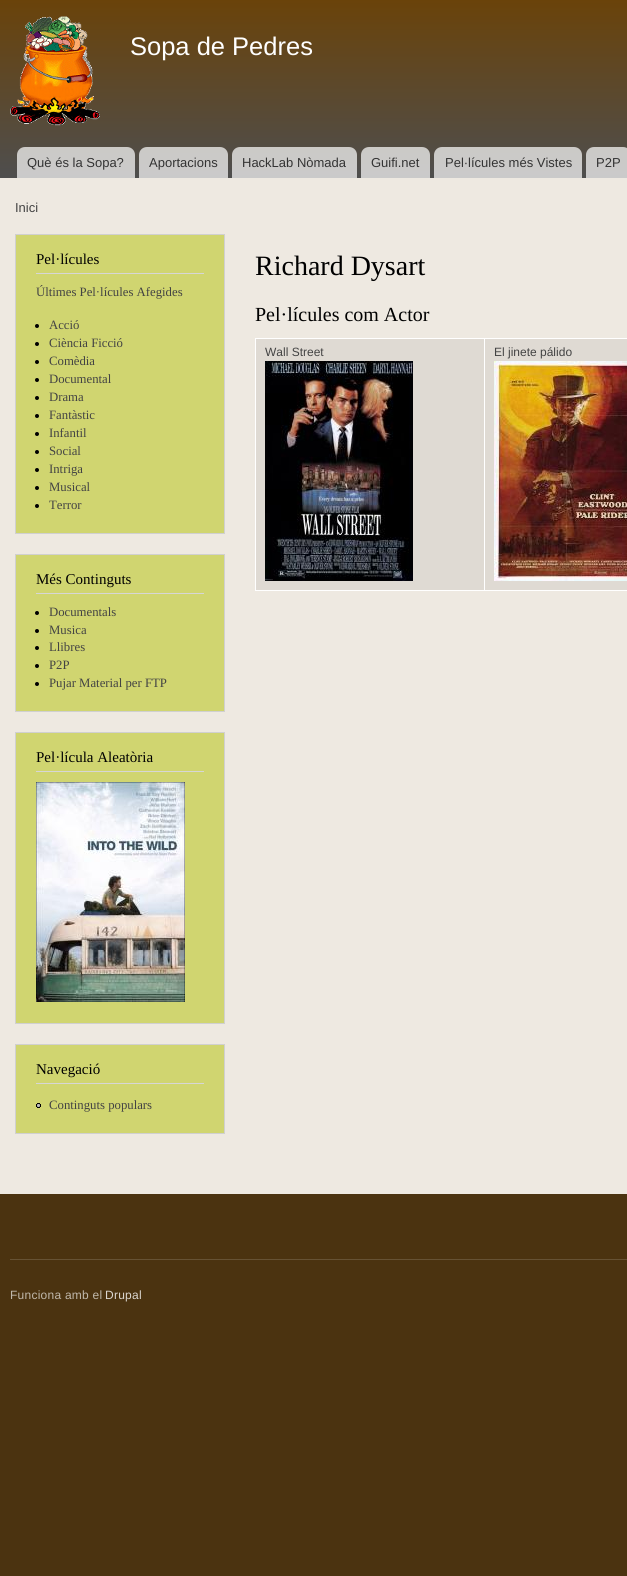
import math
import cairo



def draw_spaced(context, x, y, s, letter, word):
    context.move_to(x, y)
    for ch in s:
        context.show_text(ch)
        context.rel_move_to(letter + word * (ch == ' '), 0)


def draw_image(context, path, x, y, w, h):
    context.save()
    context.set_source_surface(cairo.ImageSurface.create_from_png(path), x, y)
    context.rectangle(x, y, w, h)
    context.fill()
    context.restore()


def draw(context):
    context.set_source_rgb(75 / 255, 51 / 255, 16 / 255)
    context.paint()
    context.set_source_rgb(238 / 255, 233 / 255, 225 / 255)
    context.rectangle(0, 178, 627, 1016)
    context.fill()
    gradient = cairo.LinearGradient(480, 0, 480, 178)
    gradient.add_color_stop_rgba(0, 106 / 255, 67 / 255, 10 / 255, 1)
    gradient.add_color_stop_rgba(1, 78 / 255, 78 / 255, 78 / 255, 1)
    context.set_source(gradient)
    context.rectangle(0, 0, 627, 178)
    context.fill()
    draw_image(context, "images/1.png", 10, 16, 90, 110)
    context.set_source_rgba(1, 1, 1, 0.7)
    context.new_path()
    context.move_to(25, 147)
    context.line_to(127, 147)
    context.curve_to(131.5, 147, 135, 150.5, 135, 155)
    context.line_to(135, 178)
    context.line_to(17, 178)
    context.line_to(17, 155)
    context.curve_to(17, 150.5, 20.5, 147, 25, 147)
    context.close_path()
    context.fill()
    context.new_path()
    context.move_to(147, 147)
    context.line_to(220, 147)
    context.curve_to(224.5, 147, 228, 150.5, 228, 155)
    context.line_to(228, 178)
    context.line_to(139, 178)
    context.line_to(139, 155)
    context.curve_to(139, 150.5, 142.5, 147, 147, 147)
    context.close_path()
    context.fill()
    context.new_path()
    context.move_to(240, 147)
    context.line_to(349, 147)
    context.curve_to(353.5, 147, 357, 150.5, 357, 155)
    context.line_to(357, 178)
    context.line_to(232, 178)
    context.line_to(232, 155)
    context.curve_to(232, 150.5, 235.5, 147, 240, 147)
    context.close_path()
    context.fill()
    context.new_path()
    context.move_to(369, 147)
    context.line_to(422, 147)
    context.curve_to(426.5, 147, 430, 150.5, 430, 155)
    context.line_to(430, 178)
    context.line_to(361, 178)
    context.line_to(361, 155)
    context.curve_to(361, 150.5, 364.5, 147, 369, 147)
    context.close_path()
    context.fill()
    context.new_path()
    context.move_to(442, 147)
    context.line_to(574, 147)
    context.curve_to(578.5, 147, 582, 150.5, 582, 155)
    context.line_to(582, 178)
    context.line_to(434, 178)
    context.line_to(434, 155)
    context.curve_to(434, 150.5, 437.5, 147, 442, 147)
    context.close_path()
    context.fill()
    context.new_path()
    context.move_to(594, 147)
    context.line_to(623, 147)
    context.curve_to(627.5, 147, 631, 150.5, 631, 155)
    context.line_to(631, 178)
    context.line_to(586, 178)
    context.line_to(586, 155)
    context.curve_to(586, 150.5, 589.5, 147, 594, 147)
    context.close_path()
    context.fill()
    context.set_source_rgb(208 / 255, 213 / 255, 112 / 255)
    context.rectangle(15.5, 234.5, 209, 299)
    context.fill_preserve()
    context.set_source_rgb(208 / 255, 208 / 255, 208 / 255)
    context.set_line_width(1)
    context.stroke()
    context.set_source_rgb(214 / 255, 214 / 255, 214 / 255)
    context.rectangle(36, 273, 168, 1)
    context.fill()
    context.set_source_rgb(0, 0, 0)
    context.arc(37, 326, 2, 0, 2 * math.pi)
    context.fill()
    context.arc(37, 344, 2, 0, 2 * math.pi)
    context.fill()
    context.arc(37, 362, 2, 0, 2 * math.pi)
    context.fill()
    context.arc(37, 380, 2, 0, 2 * math.pi)
    context.fill()
    context.arc(37, 398, 2, 0, 2 * math.pi)
    context.fill()
    context.arc(37, 416, 2, 0, 2 * math.pi)
    context.fill()
    context.arc(37, 434, 2, 0, 2 * math.pi)
    context.fill()
    context.arc(37, 452, 2, 0, 2 * math.pi)
    context.fill()
    context.arc(37, 470, 2, 0, 2 * math.pi)
    context.fill()
    context.arc(37, 488, 2, 0, 2 * math.pi)
    context.fill()
    context.arc(37, 506, 2, 0, 2 * math.pi)
    context.fill()
    context.set_source_rgb(208 / 255, 213 / 255, 112 / 255)
    context.rectangle(15.5, 554.5, 209, 157)
    context.fill_preserve()
    context.set_source_rgb(208 / 255, 208 / 255, 208 / 255)
    context.stroke()
    context.set_source_rgb(214 / 255, 214 / 255, 214 / 255)
    context.rectangle(36, 593, 168, 1)
    context.fill()
    context.set_source_rgb(0, 0, 0)
    context.arc(37, 613, 2, 0, 2 * math.pi)
    context.fill()
    context.arc(37, 631, 2, 0, 2 * math.pi)
    context.fill()
    context.arc(37, 648, 2, 0, 2 * math.pi)
    context.fill()
    context.arc(37, 666, 2, 0, 2 * math.pi)
    context.fill()
    context.arc(37, 684, 2, 0, 2 * math.pi)
    context.fill()
    context.set_source_rgb(208 / 255, 213 / 255, 112 / 255)
    context.rectangle(15.5, 732.5, 209, 291)
    context.fill_preserve()
    context.set_source_rgb(208 / 255, 208 / 255, 208 / 255)
    context.stroke()
    context.set_source_rgb(214 / 255, 214 / 255, 214 / 255)
    context.rectangle(36, 771, 168, 1)
    context.fill()
    draw_image(context, "images/2.png", 36, 782, 149, 220)
    context.set_source_rgb(208 / 255, 213 / 255, 112 / 255)
    context.rectangle(15.5, 1044.5, 209, 89)
    context.fill_preserve()
    context.set_source_rgb(208 / 255, 208 / 255, 208 / 255)
    context.stroke()
    context.set_source_rgb(214 / 255, 214 / 255, 214 / 255)
    context.rectangle(36, 1083, 168, 1)
    context.fill()
    draw_image(context, "images/3.png", 36, 1103, 5, 5)
    context.set_source_rgb(223 / 255, 218 / 255, 211 / 255)
    context.rectangle(256, 339, 371, 251)
    context.fill()
    context.set_source_rgb(1, 1, 1)
    context.rectangle(484, 338, 143, 1)
    context.fill()
    context.rectangle(484, 590, 143, 1)
    context.fill()
    context.rectangle(484, 338, 1, 253)
    context.fill()
    context.rectangle(255, 338, 230, 1)
    context.fill()
    context.rectangle(255, 590, 230, 1)
    context.fill()
    context.rectangle(255, 338, 1, 253)
    context.fill()
    draw_image(context, "images/4.png", 265, 361, 148, 220)
    draw_image(context, "images/5.png", 494, 361, 133, 220)
    context.set_source_rgb(102 / 255, 82 / 255, 52 / 255)
    context.rectangle(10, 1259, 617, 1)
    context.fill()
    context.select_font_face("Liberation Sans")
    context.set_font_size(25.5)
    context.set_source_rgb(1, 1, 1)
    context.move_to(130, 55)
    context.show_text("Sopa de Pedres")
    context.set_font_size(13)
    context.set_source_rgb(51 / 255, 51 / 255, 51 / 255)
    context.move_to(27, 167)
    context.show_text("Què és la Sopa?")
    context.move_to(149, 167)
    context.show_text("Aportacions")
    context.move_to(242, 167)
    context.show_text("HackLab Nòmada")
    context.move_to(371, 167)
    context.show_text("Guifi.net")
    context.move_to(445, 167)
    context.show_text("Pel·lícules més Vistes")
    context.move_to(596, 167)
    context.show_text("P2P")
    context.set_source_rgb(67 / 255, 67 / 255, 67 / 255)
    context.move_to(15, 212)
    context.show_text("Inici")
    context.select_font_face("Liberation Serif")
    context.set_font_size(15)
    context.set_source_rgb(0, 0, 0)
    context.move_to(36, 264)
    context.show_text("Pel·lícules")
    context.set_font_size(12.75)
    context.set_source_rgb(67 / 255, 67 / 255, 67 / 255)
    context.move_to(36, 296)
    context.show_text("Últimes Pel·lícules Afegides")
    context.move_to(49, 329)
    context.show_text("Acció")
    context.move_to(49, 347)
    context.show_text("Ciència Ficció")
    context.move_to(49, 365)
    context.show_text("Comèdia")
    context.move_to(49, 383)
    context.show_text("Documental")
    context.move_to(49, 401)
    context.show_text("Drama")
    context.move_to(49, 419)
    context.show_text("Fantàstic")
    context.move_to(49, 437)
    context.show_text("Infantil")
    context.move_to(49, 455)
    context.show_text("Social")
    context.move_to(49, 473)
    context.show_text("Intriga")
    context.move_to(49, 491)
    context.show_text("Musical")
    context.move_to(49, 509)
    context.show_text("Terror")
    context.set_font_size(15)
    context.set_source_rgb(0, 0, 0)
    context.move_to(36, 584)
    context.show_text("Més Continguts")
    context.set_font_size(12.75)
    context.set_source_rgb(67 / 255, 67 / 255, 67 / 255)
    context.move_to(49, 616)
    context.show_text("Documentals")
    context.move_to(49, 634)
    context.show_text("Musica")
    context.move_to(49, 651)
    context.show_text("Llibres")
    context.move_to(49, 669)
    context.show_text("P2P")
    context.move_to(49, 687)
    context.show_text("Pujar Material per FTP")
    context.set_font_size(15)
    context.set_source_rgb(0, 0, 0)
    context.move_to(36, 762)
    context.show_text("Pel·lícula Aleatòria")
    context.move_to(36, 1074)
    context.show_text("Navegació")
    context.set_font_size(12.75)
    context.set_source_rgb(67 / 255, 67 / 255, 67 / 255)
    context.move_to(49, 1109)
    context.show_text("Continguts populars")
    context.set_font_size(28)
    context.set_source_rgb(0, 0, 0)
    context.move_to(255, 275)
    context.show_text("Richard Dysart")
    context.set_font_size(20)
    context.move_to(255, 321)
    context.show_text("Pel·lícules com Actor")
    context.select_font_face("Liberation Sans")
    context.set_font_size(12)
    context.set_source_rgb(67 / 255, 67 / 255, 67 / 255)
    context.move_to(265, 356)
    context.show_text("Wall Street")
    context.move_to(494, 356)
    context.show_text("El jinete pálido")
    context.set_source_rgb(192 / 255, 184 / 255, 171 / 255)
    draw_spaced(context, 10, 1299, "Funciona amb el", 0.25, 0)
    context.set_source_rgb(219 / 255, 214 / 255, 207 / 255)
    draw_spaced(context, 105, 1299, "Drupal", 0.25, 0)


surface = cairo.ImageSurface(cairo.Format.RGB24, 627, 1576)
context = cairo.Context(surface)
options = cairo.FontOptions()
options.set_hint_metrics(cairo.HintMetrics.OFF)
options.set_hint_style(cairo.HintStyle.NONE)
context.set_font_options(options)
context.set_miter_limit(4)
draw(context)
surface.write_to_png("out.png")
